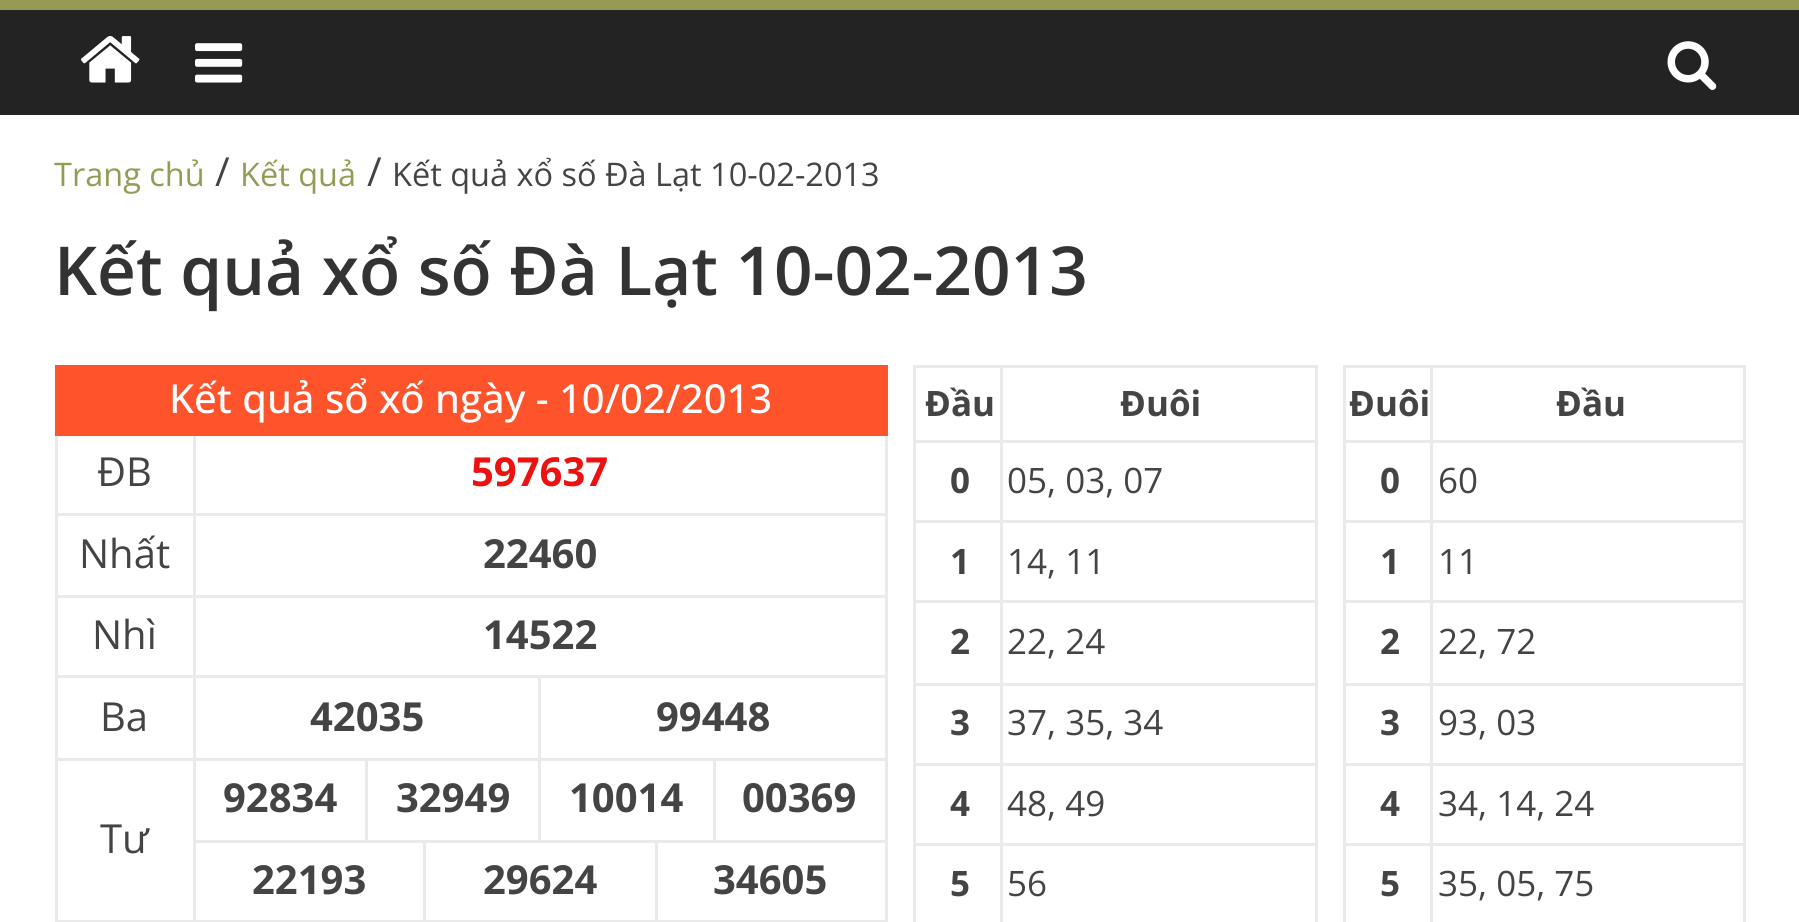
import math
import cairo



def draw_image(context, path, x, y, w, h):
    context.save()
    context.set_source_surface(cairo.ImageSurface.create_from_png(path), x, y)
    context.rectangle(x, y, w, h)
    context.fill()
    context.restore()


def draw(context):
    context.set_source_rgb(1, 1, 1)
    context.paint()
    context.set_source_rgb(35 / 255, 35 / 255, 35 / 255)
    context.rectangle(0, 10, 1799, 105)
    context.fill()
    context.set_source_rgb(149 / 255, 155 / 255, 84 / 255)
    context.rectangle(0, 0, 1799, 10)
    context.fill()
    draw_image(context, "images/1.png", 80, 36, 60, 47)
    draw_image(context, "images/2.png", 195, 43, 48, 40)
    draw_image(context, "images/3.png", 1667, 41, 50, 49)
    context.set_source_rgb(1, 83 / 255, 44 / 255)
    context.rectangle(55, 368, 830, 65)
    context.fill()
    context.rectangle(55, 365, 833, 3)
    context.fill()
    context.set_source_rgb(234 / 255, 234 / 255, 234 / 255)
    context.rectangle(193, 513, 695, 3)
    context.fill()
    context.rectangle(193, 595, 695, 3)
    context.fill()
    context.rectangle(538, 675, 350, 3)
    context.fill()
    context.rectangle(713, 758, 175, 3)
    context.fill()
    context.rectangle(655, 840, 233, 3)
    context.fill()
    context.rectangle(55, 920, 833, 2)
    context.fill()
    context.rectangle(885, 840, 3, 82)
    context.fill()
    context.rectangle(885, 758, 3, 85)
    context.fill()
    context.rectangle(885, 675, 3, 85)
    context.fill()
    context.rectangle(885, 595, 3, 83)
    context.fill()
    context.rectangle(885, 433, 3, 165)
    context.fill()
    context.set_source_rgb(1, 83 / 255, 44 / 255)
    context.rectangle(885, 365, 3, 70)
    context.fill()
    context.set_source_rgb(234 / 255, 234 / 255, 234 / 255)
    context.rectangle(713, 758, 3, 85)
    context.fill()
    context.rectangle(538, 758, 177, 3)
    context.fill()
    context.rectangle(655, 840, 3, 82)
    context.fill()
    context.rectangle(423, 840, 235, 3)
    context.fill()
    context.rectangle(538, 758, 3, 85)
    context.fill()
    context.rectangle(365, 758, 175, 3)
    context.fill()
    context.rectangle(538, 675, 3, 85)
    context.fill()
    context.rectangle(193, 675, 347, 3)
    context.fill()
    context.rectangle(423, 840, 3, 82)
    context.fill()
    context.rectangle(193, 840, 232, 3)
    context.fill()
    context.rectangle(365, 758, 3, 85)
    context.fill()
    context.rectangle(193, 758, 175, 3)
    context.fill()
    context.rectangle(193, 840, 3, 82)
    context.fill()
    context.rectangle(193, 758, 3, 85)
    context.fill()
    context.rectangle(55, 758, 140, 3)
    context.fill()
    context.rectangle(193, 675, 3, 85)
    context.fill()
    context.rectangle(55, 675, 140, 3)
    context.fill()
    context.rectangle(193, 595, 3, 83)
    context.fill()
    context.rectangle(55, 595, 140, 3)
    context.fill()
    context.rectangle(193, 513, 3, 85)
    context.fill()
    context.rectangle(55, 513, 140, 3)
    context.fill()
    context.rectangle(193, 433, 3, 82)
    context.fill()
    context.rectangle(55, 758, 3, 164)
    context.fill()
    context.rectangle(55, 675, 3, 85)
    context.fill()
    context.rectangle(55, 595, 3, 83)
    context.fill()
    context.rectangle(55, 433, 3, 165)
    context.fill()
    context.set_source_rgb(1, 83 / 255, 44 / 255)
    context.rectangle(55, 433, 833, 3)
    context.fill()
    context.set_source_rgb(234 / 255, 234 / 255, 234 / 255)
    context.rectangle(1000, 365, 318, 3)
    context.fill()
    context.rectangle(1000, 440, 318, 3)
    context.fill()
    context.rectangle(1000, 520, 318, 3)
    context.fill()
    context.rectangle(1000, 600, 318, 3)
    context.fill()
    context.rectangle(1000, 683, 318, 3)
    context.fill()
    context.rectangle(1000, 763, 318, 3)
    context.fill()
    context.rectangle(1000, 843, 318, 3)
    context.fill()
    context.rectangle(1000, 843, 3, 79)
    context.fill()
    context.rectangle(913, 843, 90, 3)
    context.fill()
    context.rectangle(1000, 763, 3, 82)
    context.fill()
    context.rectangle(913, 763, 90, 3)
    context.fill()
    context.rectangle(1000, 683, 3, 82)
    context.fill()
    context.rectangle(913, 683, 90, 3)
    context.fill()
    context.rectangle(1000, 600, 3, 85)
    context.fill()
    context.rectangle(913, 600, 90, 3)
    context.fill()
    context.rectangle(1000, 520, 3, 83)
    context.fill()
    context.rectangle(913, 520, 90, 3)
    context.fill()
    context.rectangle(1000, 440, 3, 83)
    context.fill()
    context.rectangle(913, 440, 90, 3)
    context.fill()
    context.rectangle(1000, 365, 3, 78)
    context.fill()
    context.rectangle(913, 365, 90, 3)
    context.fill()
    context.rectangle(913, 843, 3, 79)
    context.fill()
    context.rectangle(913, 763, 3, 82)
    context.fill()
    context.rectangle(913, 683, 3, 82)
    context.fill()
    context.rectangle(913, 600, 3, 85)
    context.fill()
    context.rectangle(913, 520, 3, 83)
    context.fill()
    context.rectangle(913, 440, 3, 83)
    context.fill()
    context.rectangle(913, 365, 3, 78)
    context.fill()
    context.rectangle(1315, 843, 3, 79)
    context.fill()
    context.rectangle(1315, 763, 3, 82)
    context.fill()
    context.rectangle(1315, 683, 3, 82)
    context.fill()
    context.rectangle(1315, 600, 3, 85)
    context.fill()
    context.rectangle(1315, 520, 3, 83)
    context.fill()
    context.rectangle(1315, 440, 3, 83)
    context.fill()
    context.rectangle(1315, 365, 3, 78)
    context.fill()
    context.rectangle(1430, 365, 315, 3)
    context.fill()
    context.rectangle(1430, 440, 315, 3)
    context.fill()
    context.rectangle(1430, 520, 315, 3)
    context.fill()
    context.rectangle(1430, 600, 315, 3)
    context.fill()
    context.rectangle(1430, 683, 315, 3)
    context.fill()
    context.rectangle(1430, 763, 315, 3)
    context.fill()
    context.rectangle(1430, 843, 315, 3)
    context.fill()
    context.rectangle(1430, 843, 3, 79)
    context.fill()
    context.rectangle(1343, 843, 90, 3)
    context.fill()
    context.rectangle(1430, 763, 3, 82)
    context.fill()
    context.rectangle(1343, 763, 90, 3)
    context.fill()
    context.rectangle(1430, 683, 3, 82)
    context.fill()
    context.rectangle(1343, 683, 90, 3)
    context.fill()
    context.rectangle(1430, 600, 3, 85)
    context.fill()
    context.rectangle(1343, 600, 90, 3)
    context.fill()
    context.rectangle(1430, 520, 3, 83)
    context.fill()
    context.rectangle(1343, 520, 90, 3)
    context.fill()
    context.rectangle(1430, 440, 3, 83)
    context.fill()
    context.rectangle(1343, 440, 90, 3)
    context.fill()
    context.rectangle(1430, 365, 3, 78)
    context.fill()
    context.rectangle(1343, 365, 90, 3)
    context.fill()
    context.rectangle(1343, 843, 3, 79)
    context.fill()
    context.rectangle(1343, 763, 3, 82)
    context.fill()
    context.rectangle(1343, 683, 3, 82)
    context.fill()
    context.rectangle(1343, 600, 3, 85)
    context.fill()
    context.rectangle(1343, 520, 3, 83)
    context.fill()
    context.rectangle(1343, 440, 3, 83)
    context.fill()
    context.rectangle(1343, 365, 3, 78)
    context.fill()
    context.rectangle(1743, 843, 3, 79)
    context.fill()
    context.rectangle(1743, 763, 3, 82)
    context.fill()
    context.rectangle(1743, 683, 3, 82)
    context.fill()
    context.rectangle(1743, 600, 3, 85)
    context.fill()
    context.rectangle(1743, 520, 3, 83)
    context.fill()
    context.rectangle(1743, 440, 3, 83)
    context.fill()
    context.rectangle(1743, 365, 3, 78)
    context.fill()
    context.select_font_face("Open Sans")
    context.set_font_size(32.5)
    context.set_source_rgb(149 / 255, 155 / 255, 84 / 255)
    context.move_to(54, 186)
    context.show_text("Trang chủ")
    context.set_font_size(40)
    context.set_source_rgb(68 / 255, 68 / 255, 68 / 255)
    context.move_to(215, 186)
    context.show_text("/")
    context.set_font_size(32.5)
    context.set_source_rgb(149 / 255, 155 / 255, 84 / 255)
    context.move_to(240, 186)
    context.show_text("Kết quả")
    context.set_font_size(40)
    context.set_source_rgb(68 / 255, 68 / 255, 68 / 255)
    context.move_to(367, 186)
    context.show_text("/")
    context.set_font_size(32.5)
    context.move_to(392, 186)
    context.show_text("Kết quả xổ số Đà Lạt 10-02-2013")
    context.select_font_face("Open Sans SemiBold")
    context.set_font_size(67.5)
    context.set_source_rgb(51 / 255, 51 / 255, 51 / 255)
    context.move_to(54, 295)
    context.show_text("Kết quả xổ số Đà Lạt 10-02-2013")
    context.select_font_face("Open Sans Medium")
    context.set_font_size(40)
    context.set_source_rgb(1, 1, 1)
    context.move_to(169, 413)
    context.show_text("Kết quả sổ xố ngày - 10/02/2013")
    context.select_font_face("Open Sans")
    context.set_source_rgb(68 / 255, 68 / 255, 68 / 255)
    context.move_to(97, 486)
    context.show_text("ĐB")
    context.select_font_face("Open Sans", cairo.FontSlant.NORMAL, cairo.FontWeight.BOLD)
    context.set_source_rgb(237 / 255, 18 / 255, 18 / 255)
    context.move_to(471, 486)
    context.show_text("597637")
    context.select_font_face("Open Sans")
    context.set_source_rgb(68 / 255, 68 / 255, 68 / 255)
    context.move_to(79, 568)
    context.show_text("Nhất")
    context.select_font_face("Open Sans", cairo.FontSlant.NORMAL, cairo.FontWeight.BOLD)
    context.move_to(483, 568)
    context.show_text("22460")
    context.select_font_face("Open Sans")
    context.move_to(92, 649)
    context.show_text("Nhì")
    context.select_font_face("Open Sans", cairo.FontSlant.NORMAL, cairo.FontWeight.BOLD)
    context.move_to(483, 649)
    context.show_text("14522")
    context.select_font_face("Open Sans")
    context.move_to(100, 731)
    context.show_text("Ba")
    context.select_font_face("Open Sans", cairo.FontSlant.NORMAL, cairo.FontWeight.BOLD)
    context.move_to(310, 731)
    context.show_text("42035")
    context.move_to(656, 731)
    context.show_text("99448")
    context.move_to(223, 812)
    context.show_text("92834")
    context.move_to(396, 812)
    context.show_text("32949")
    context.move_to(569, 812)
    context.show_text("10014")
    context.move_to(742, 812)
    context.show_text("00369")
    context.select_font_face("Open Sans")
    context.move_to(100, 853)
    context.show_text("Tư")
    context.select_font_face("Open Sans", cairo.FontSlant.NORMAL, cairo.FontWeight.BOLD)
    context.move_to(252, 894)
    context.show_text("22193")
    context.move_to(483, 894)
    context.show_text("29624")
    context.move_to(713, 894)
    context.show_text("34605")
    context.set_font_size(35)
    context.move_to(925, 416)
    context.show_text("Đầu")
    context.move_to(1120, 416)
    context.show_text("Đuôi")
    context.move_to(950, 493)
    context.show_text("0")
    context.select_font_face("Open Sans")
    context.move_to(1007, 493)
    context.show_text("05, 03, 07")
    context.select_font_face("Open Sans", cairo.FontSlant.NORMAL, cairo.FontWeight.BOLD)
    context.move_to(950, 574)
    context.show_text("1")
    context.select_font_face("Open Sans")
    context.move_to(1007, 574)
    context.show_text("14, 11")
    context.select_font_face("Open Sans", cairo.FontSlant.NORMAL, cairo.FontWeight.BOLD)
    context.move_to(950, 654)
    context.show_text("2")
    context.select_font_face("Open Sans")
    context.move_to(1007, 654)
    context.show_text("22, 24")
    context.select_font_face("Open Sans", cairo.FontSlant.NORMAL, cairo.FontWeight.BOLD)
    context.move_to(950, 735)
    context.show_text("3")
    context.select_font_face("Open Sans")
    context.move_to(1007, 735)
    context.show_text("37, 35, 34")
    context.select_font_face("Open Sans", cairo.FontSlant.NORMAL, cairo.FontWeight.BOLD)
    context.move_to(950, 816)
    context.show_text("4")
    context.select_font_face("Open Sans")
    context.move_to(1007, 816)
    context.show_text("48, 49")
    context.select_font_face("Open Sans", cairo.FontSlant.NORMAL, cairo.FontWeight.BOLD)
    context.move_to(950, 896)
    context.show_text("5")
    context.select_font_face("Open Sans")
    context.move_to(1007, 896)
    context.show_text("56")
    context.select_font_face("Open Sans", cairo.FontSlant.NORMAL, cairo.FontWeight.BOLD)
    context.move_to(1349, 416)
    context.show_text("Đuôi")
    context.move_to(1556, 416)
    context.show_text("Đầu")
    context.move_to(1380, 493)
    context.show_text("0")
    context.select_font_face("Open Sans")
    context.move_to(1438, 493)
    context.show_text("60")
    context.select_font_face("Open Sans", cairo.FontSlant.NORMAL, cairo.FontWeight.BOLD)
    context.move_to(1380, 574)
    context.show_text("1")
    context.select_font_face("Open Sans")
    context.move_to(1438, 574)
    context.show_text("11")
    context.select_font_face("Open Sans", cairo.FontSlant.NORMAL, cairo.FontWeight.BOLD)
    context.move_to(1380, 654)
    context.show_text("2")
    context.select_font_face("Open Sans")
    context.move_to(1438, 654)
    context.show_text("22, 72")
    context.select_font_face("Open Sans", cairo.FontSlant.NORMAL, cairo.FontWeight.BOLD)
    context.move_to(1380, 735)
    context.show_text("3")
    context.select_font_face("Open Sans")
    context.move_to(1438, 735)
    context.show_text("93, 03")
    context.select_font_face("Open Sans", cairo.FontSlant.NORMAL, cairo.FontWeight.BOLD)
    context.move_to(1380, 816)
    context.show_text("4")
    context.select_font_face("Open Sans")
    context.move_to(1438, 816)
    context.show_text("34, 14, 24")
    context.select_font_face("Open Sans", cairo.FontSlant.NORMAL, cairo.FontWeight.BOLD)
    context.move_to(1380, 896)
    context.show_text("5")
    context.select_font_face("Open Sans")
    context.move_to(1438, 896)
    context.show_text("35, 05, 75")


surface = cairo.ImageSurface(cairo.Format.RGB24, 1799, 922)
context = cairo.Context(surface)
options = cairo.FontOptions()
options.set_hint_metrics(cairo.HintMetrics.OFF)
options.set_hint_style(cairo.HintStyle.NONE)
context.set_font_options(options)
context.set_miter_limit(4)
draw(context)
surface.write_to_png("out.png")
